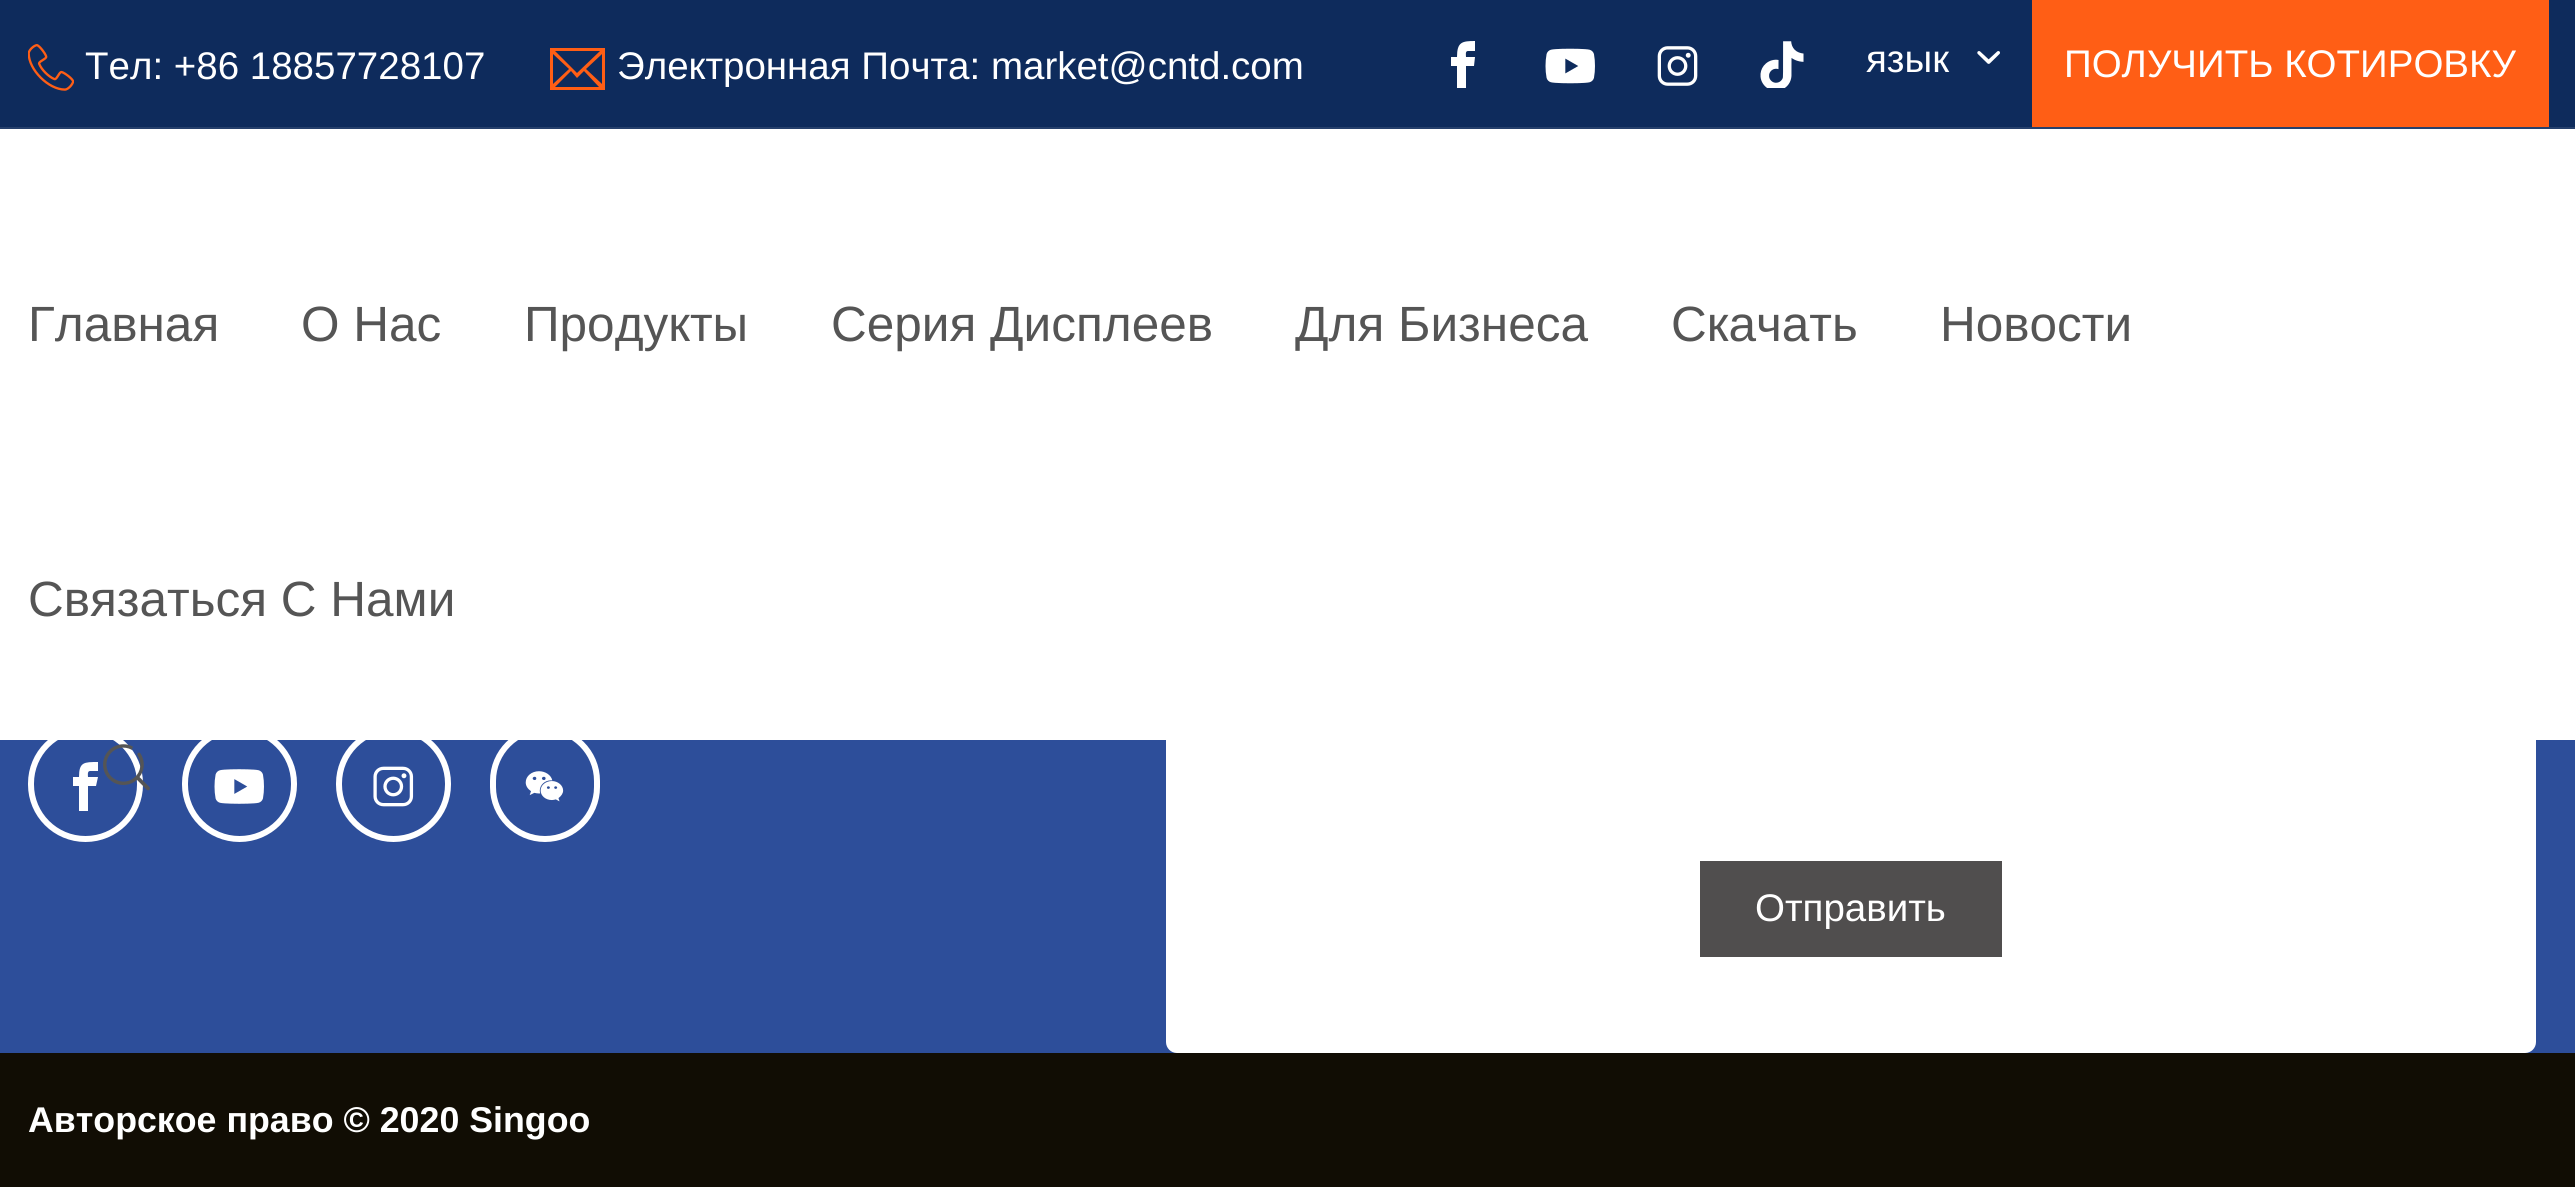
import math
import cairo



def rounded_rect(context, x, y, w, h, r):
    context.new_sub_path()
    for i, (u, v) in enumerate([(x + w - r, y + h - r), (x + r, y + h - r), (x + r, y + r), (x + w - r, y + r)]):
        context.arc(u, v, r, i * math.pi / 2, (i + 1) * math.pi / 2)
    context.close_path()


def draw_image(context, path, x, y, w, h):
    context.save()
    context.set_source_surface(cairo.ImageSurface.create_from_png(path), x, y)
    context.rectangle(x, y, w, h)
    context.fill()
    context.restore()


def draw(context):
    context.set_source_rgb(45 / 255, 78 / 255, 154 / 255)
    context.paint()
    rounded_rect(context, 31, 729, 109, 110, 54.5)
    context.set_source_rgb(1, 1, 1)
    context.set_line_width(6)
    context.stroke()
    rounded_rect(context, 185, 729, 109, 110, 54.5)
    context.stroke()
    rounded_rect(context, 339, 729, 109, 110, 54.5)
    context.stroke()
    rounded_rect(context, 493, 729, 104, 110, 52)
    context.stroke()
    rounded_rect(context, 1166, -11, 1370, 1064, 11)
    context.fill()
    context.rectangle(0, 129, 2575, 611)
    context.fill()
    context.set_source_rgb(14 / 255, 43 / 255, 92 / 255)
    context.rectangle(0, 0, 2575, 127)
    context.fill()
    context.set_source_rgb(38 / 255, 64 / 255, 108 / 255)
    context.rectangle(0, 127, 2575, 2)
    context.fill()
    draw_image(context, "images/1.png", 28, 44, 46, 47)
    context.set_source_rgb(1, 94 / 255, 21 / 255)
    context.new_path()
    context.move_to(550, 48)
    context.line_to(550, 90)
    context.line_to(605, 90)
    context.line_to(605, 48)
    context.close_path()
    context.move_to(577, 73)
    context.line_to(555, 51)
    context.line_to(600, 51)
    context.close_path()
    context.move_to(569, 69)
    context.line_to(553, 84)
    context.line_to(553, 54)
    context.close_path()
    context.move_to(571, 71)
    context.line_to(577, 78)
    context.line_to(584, 71)
    context.line_to(599, 87)
    context.line_to(555, 87)
    context.close_path()
    context.move_to(586, 69)
    context.line_to(602, 54)
    context.line_to(602, 84)
    context.close_path()
    context.fill()
    context.save()
    context.rectangle(1436, 33, 55, 55)
    context.clip()
    context.set_source_rgb(1, 1, 1)
    context.new_path()
    context.move_to(1468, 51)
    context.line_to(1475, 51)
    context.line_to(1475, 41)
    context.curve_to(1462, 41, 1457, 42, 1457, 57)
    context.line_to(1451, 57)
    context.line_to(1451, 66)
    context.line_to(1457, 66)
    context.line_to(1457, 91)
    context.line_to(1466, 91)
    context.line_to(1466, 66)
    context.line_to(1474, 66)
    context.line_to(1475, 57)
    context.line_to(1466, 57)
    context.curve_to(1466, 55, 1465, 51, 1468, 51)
    context.close_path()
    context.fill()
    context.restore()
    draw_image(context, "images/2.png", 1545, 48, 50, 36)
    draw_image(context, "images/3.png", 1657, 46, 41, 40)
    draw_image(context, "images/4.png", 1760, 41, 44, 47)
    draw_image(context, "images/5.png", 1977, 51, 23, 13)
    context.rectangle(2032, 0, 517, 127)
    context.fill()
    draw_image(context, "images/6.png", 103, 744, 47, 47)
    context.set_source_rgb(1, 1, 1)
    context.new_path()
    context.move_to(90, 771)
    context.line_to(98, 771)
    context.line_to(98, 762)
    context.curve_to(84, 762, 79, 762, 79, 777)
    context.line_to(73, 777)
    context.line_to(73, 786)
    context.line_to(79, 786)
    context.line_to(79, 811)
    context.line_to(88, 811)
    context.line_to(88, 786)
    context.line_to(96, 786)
    context.line_to(98, 777)
    context.line_to(88, 777)
    context.curve_to(88, 776, 87, 771, 90, 771)
    context.close_path()
    context.fill()
    draw_image(context, "images/7.png", 214, 769, 50, 35)
    draw_image(context, "images/8.png", 373, 766, 41, 41)
    draw_image(context, "images/9.png", 525, 771, 39, 31)
    context.set_source_rgb(80 / 255, 78 / 255, 78 / 255)
    context.rectangle(1700, 861, 302, 96)
    context.fill()
    context.set_source_rgb(17 / 255, 13 / 255, 4 / 255)
    context.rectangle(0, 1053, 2575, 134)
    context.fill()
    context.select_font_face("Liberation Sans")
    context.set_font_size(38.5)
    context.set_source_rgb(1, 1, 1)
    context.move_to(85, 79)
    context.show_text("Тел: +86 18857728107")
    context.move_to(617, 79)
    context.show_text("Электронная Почта: market@cntd.com")
    context.move_to(1866, 72)
    context.show_text("язык")
    context.move_to(2064, 77)
    context.show_text("ПОЛУЧИТЬ КОТИРОВКУ")
    context.set_font_size(49.5)
    context.set_source_rgb(85 / 255, 85 / 255, 85 / 255)
    context.move_to(28, 341)
    context.show_text("Главная")
    context.move_to(301, 341)
    context.show_text("О Нас")
    context.move_to(524, 341)
    context.show_text("Продукты")
    context.move_to(831, 341)
    context.show_text("Серия Дисплеев")
    context.move_to(1295, 341)
    context.show_text("Для Бизнеса")
    context.move_to(1671, 341)
    context.show_text("Скачать")
    context.move_to(1940, 341)
    context.show_text("Новости")
    context.move_to(28, 616)
    context.show_text("Связаться С Нами")
    context.set_font_size(38.5)
    context.set_source_rgb(1, 1, 1)
    context.move_to(1755, 921)
    context.show_text("Отправить")
    context.select_font_face("Liberation Sans", cairo.FontSlant.NORMAL, cairo.FontWeight.BOLD)
    context.set_font_size(35.75)
    context.move_to(28, 1132)
    context.show_text("Авторское право © 2020 Singoo")


surface = cairo.ImageSurface(cairo.Format.RGB24, 2575, 1187)
context = cairo.Context(surface)
options = cairo.FontOptions()
options.set_hint_metrics(cairo.HintMetrics.OFF)
options.set_hint_style(cairo.HintStyle.NONE)
context.set_font_options(options)
context.set_miter_limit(4)
draw(context)
surface.write_to_png("out.png")
